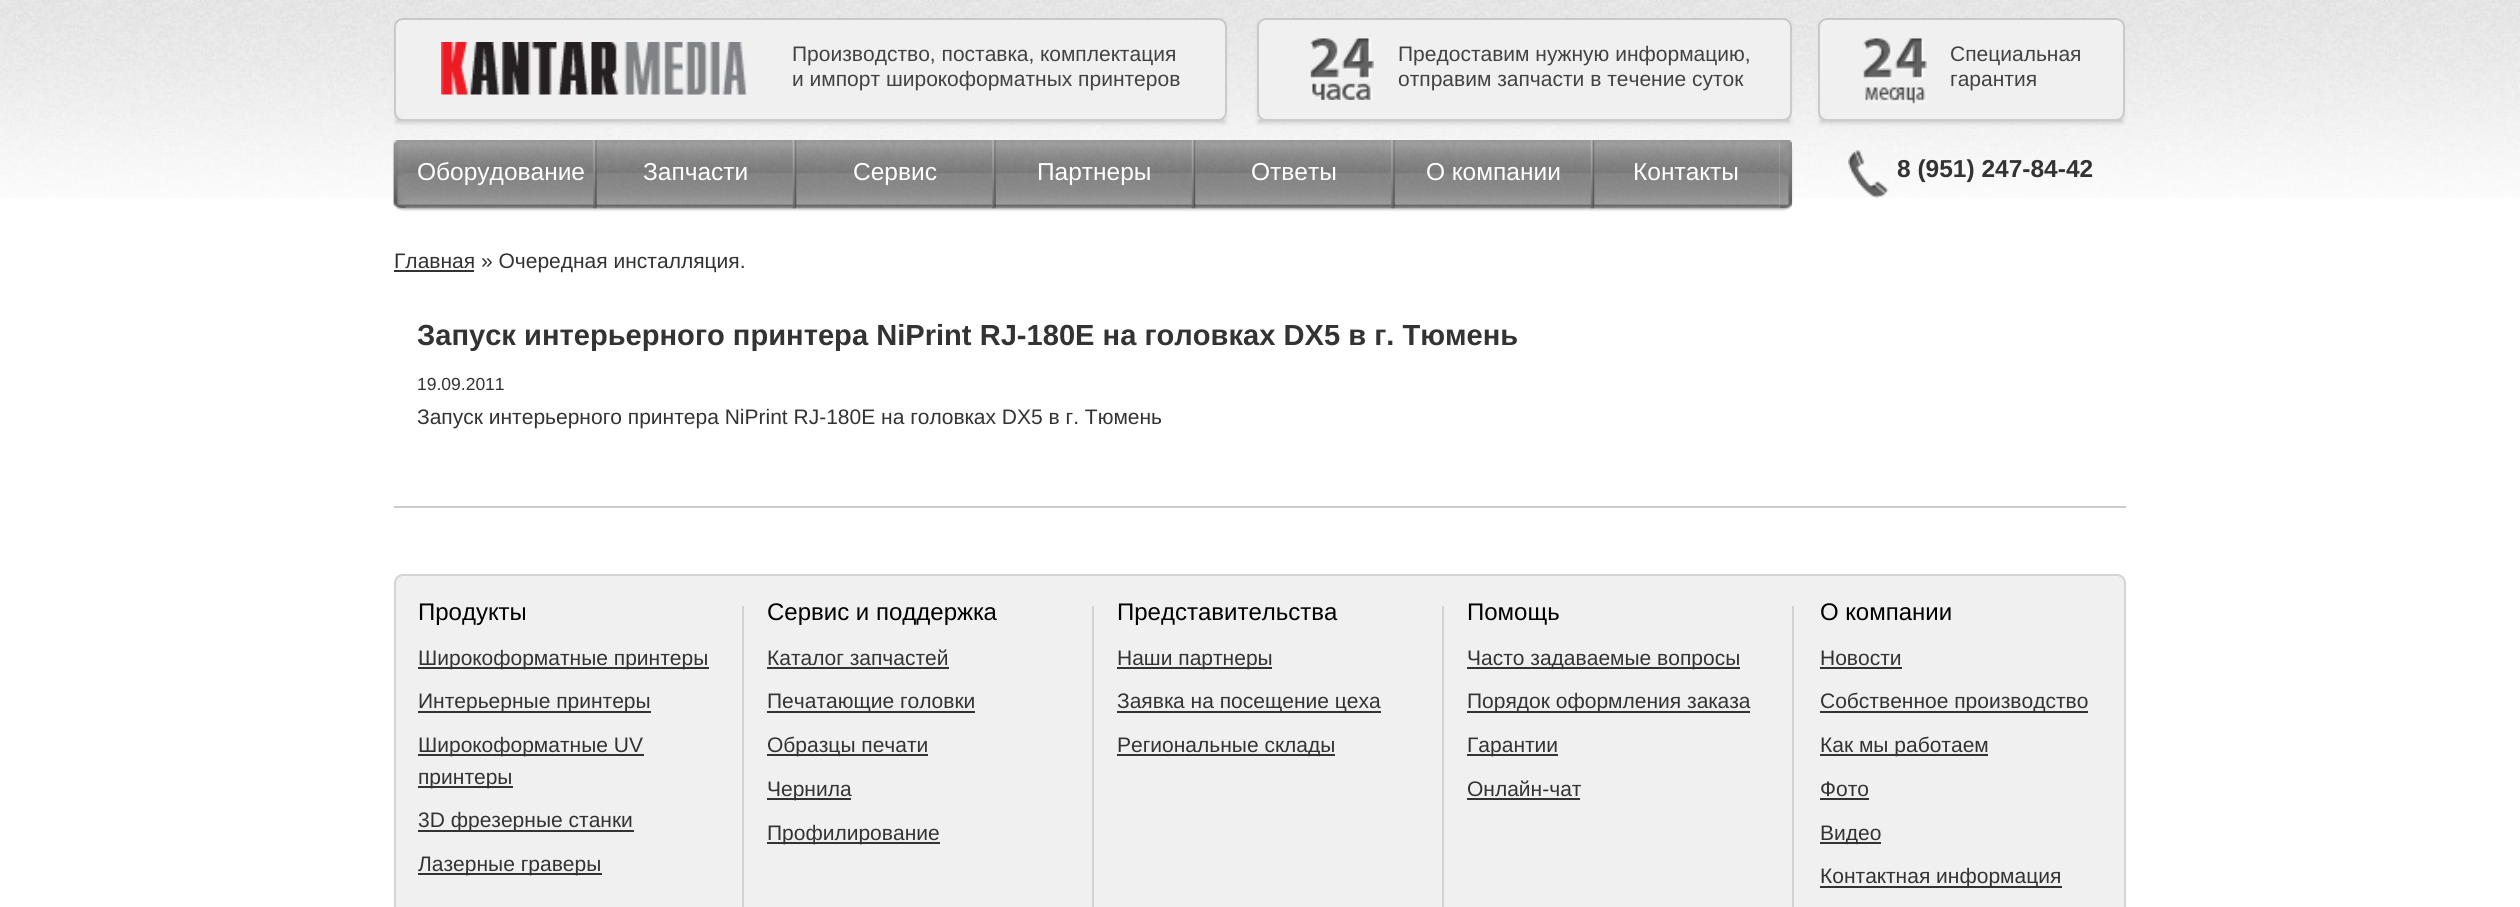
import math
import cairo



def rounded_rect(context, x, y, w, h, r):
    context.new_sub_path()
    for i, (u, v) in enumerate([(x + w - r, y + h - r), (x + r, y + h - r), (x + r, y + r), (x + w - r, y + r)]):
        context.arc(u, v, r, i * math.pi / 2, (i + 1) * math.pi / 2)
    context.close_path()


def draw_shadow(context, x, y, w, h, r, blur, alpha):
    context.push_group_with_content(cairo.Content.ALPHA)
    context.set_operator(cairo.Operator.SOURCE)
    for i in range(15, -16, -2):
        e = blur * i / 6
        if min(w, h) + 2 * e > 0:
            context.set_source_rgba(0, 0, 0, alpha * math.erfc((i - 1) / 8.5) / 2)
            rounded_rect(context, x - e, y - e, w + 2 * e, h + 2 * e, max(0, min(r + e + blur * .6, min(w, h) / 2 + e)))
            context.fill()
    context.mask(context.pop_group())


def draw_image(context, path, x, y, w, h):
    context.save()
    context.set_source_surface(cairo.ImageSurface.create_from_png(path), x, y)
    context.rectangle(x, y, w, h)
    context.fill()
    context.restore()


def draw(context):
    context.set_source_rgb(1, 1, 1)
    context.paint()
    draw_image(context, "images/1.png", 0, 0, 2520, 198)
    context.set_source_rgb(240 / 255, 240 / 255, 240 / 255)
    rounded_rect(context, 395, 19, 831, 101, 8)
    context.fill_preserve()
    context.set_source_rgb(200 / 255, 200 / 255, 200 / 255)
    context.stroke()
    context.save()
    context.set_fill_rule(cairo.FillRule.EVEN_ODD)
    context.new_path()
    context.move_to(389, 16)
    context.line_to(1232, 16)
    context.line_to(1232, 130)
    context.line_to(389, 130)
    context.close_path()
    context.move_to(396, 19)
    context.line_to(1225, 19)
    context.line_to(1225, 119)
    context.line_to(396, 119)
    context.close_path()
    context.clip()
    context.set_source_rgb(204 / 255, 204 / 255, 204 / 255)
    draw_shadow(context, 396, 23, 829, 100, 0, 2, 1)
    context.restore()
    draw_image(context, "images/2.png", 441, 42, 307, 53)
    context.set_source_rgb(240 / 255, 240 / 255, 240 / 255)
    rounded_rect(context, 1258, 19, 533, 101, 8)
    context.fill_preserve()
    context.set_source_rgb(200 / 255, 200 / 255, 200 / 255)
    context.stroke()
    context.save()
    context.set_fill_rule(cairo.FillRule.EVEN_ODD)
    context.new_path()
    context.move_to(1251, 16)
    context.line_to(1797, 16)
    context.line_to(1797, 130)
    context.line_to(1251, 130)
    context.close_path()
    context.move_to(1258, 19)
    context.line_to(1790, 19)
    context.line_to(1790, 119)
    context.line_to(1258, 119)
    context.close_path()
    context.clip()
    context.set_source_rgb(204 / 255, 204 / 255, 204 / 255)
    draw_shadow(context, 1258, 23, 532, 100, 0, 2, 1)
    context.restore()
    draw_image(context, "images/3.png", 1310, 38, 64, 62)
    context.set_source_rgb(240 / 255, 240 / 255, 240 / 255)
    rounded_rect(context, 1819, 19, 305, 101, 8)
    context.fill_preserve()
    context.set_source_rgb(200 / 255, 200 / 255, 200 / 255)
    context.stroke()
    context.save()
    context.set_fill_rule(cairo.FillRule.EVEN_ODD)
    context.new_path()
    context.move_to(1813, 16)
    context.line_to(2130, 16)
    context.line_to(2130, 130)
    context.line_to(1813, 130)
    context.close_path()
    context.move_to(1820, 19)
    context.line_to(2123, 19)
    context.line_to(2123, 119)
    context.line_to(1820, 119)
    context.close_path()
    context.clip()
    context.set_source_rgb(204 / 255, 204 / 255, 204 / 255)
    draw_shadow(context, 1820, 23, 303, 100, 0, 2, 1)
    context.restore()
    draw_image(context, "images/4.png", 1863, 38, 64, 66)
    draw_image(context, "images/5.png", 393, 140, 13, 69)
    draw_image(context, "images/6.png", 1779, 140, 13, 69)
    draw_image(context, "images/7.png", 1848, 150, 41, 49)
    context.save()
    context.set_fill_rule(cairo.FillRule.EVEN_ODD)
    context.new_path()
    context.move_to(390, 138)
    context.line_to(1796, 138)
    context.line_to(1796, 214)
    context.line_to(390, 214)
    context.close_path()
    context.move_to(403, 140)
    context.line_to(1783, 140)
    context.curve_to(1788, 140, 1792, 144, 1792, 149)
    context.line_to(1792, 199)
    context.curve_to(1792, 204, 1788, 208, 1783, 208)
    context.line_to(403, 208)
    context.curve_to(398, 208, 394, 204, 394, 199)
    context.line_to(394, 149)
    context.curve_to(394, 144, 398, 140, 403, 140)
    context.close_path()
    context.clip()
    context.set_source_rgb(204 / 255, 204 / 255, 204 / 255)
    draw_shadow(context, 394, 142, 1398, 68, 9, 1, 1)
    context.restore()
    draw_image(context, "images/8.png", 393, 140, 13, 69)
    draw_image(context, "images/9.png", 406, 140, 1374, 69)
    draw_image(context, "images/10.png", 593, 140, 4, 69)
    draw_image(context, "images/11.png", 792, 140, 5, 69)
    draw_image(context, "images/12.png", 992, 140, 4, 69)
    draw_image(context, "images/13.png", 1191, 140, 5, 69)
    draw_image(context, "images/14.png", 1391, 140, 4, 69)
    draw_image(context, "images/15.png", 1590, 140, 5, 69)
    draw_image(context, "images/16.png", 1779, 140, 13, 69)
    context.set_source_rgb(51 / 255, 51 / 255, 51 / 255)
    context.rectangle(394, 270, 80, 2)
    context.fill()
    context.set_source_rgb(204 / 255, 204 / 255, 204 / 255)
    context.rectangle(394, 506, 1732, 2)
    context.fill()
    context.set_source_rgb(240 / 255, 240 / 255, 240 / 255)
    rounded_rect(context, 395, 575, 1730, 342, 8)
    context.fill_preserve()
    context.set_source_rgb(212 / 255, 212 / 255, 212 / 255)
    context.stroke()
    context.set_source_rgb(210 / 255, 210 / 255, 210 / 255)
    context.rectangle(742, 606, 2, 301)
    context.fill()
    context.set_source_rgb(51 / 255, 51 / 255, 51 / 255)
    context.rectangle(418, 667, 291, 2)
    context.fill()
    context.rectangle(418, 711, 233, 2)
    context.fill()
    context.rectangle(418, 754, 226, 2)
    context.fill()
    context.rectangle(418, 786, 95, 2)
    context.fill()
    context.rectangle(418, 830, 216, 2)
    context.fill()
    context.rectangle(418, 873, 184, 2)
    context.fill()
    context.set_source_rgb(210 / 255, 210 / 255, 210 / 255)
    context.rectangle(1092, 606, 2, 301)
    context.fill()
    context.set_source_rgb(51 / 255, 51 / 255, 51 / 255)
    context.rectangle(767, 667, 182, 2)
    context.fill()
    context.rectangle(767, 711, 208, 2)
    context.fill()
    context.rectangle(767, 754, 161, 2)
    context.fill()
    context.rectangle(767, 798, 84, 2)
    context.fill()
    context.rectangle(767, 842, 173, 2)
    context.fill()
    context.set_source_rgb(210 / 255, 210 / 255, 210 / 255)
    context.rectangle(1442, 606, 2, 301)
    context.fill()
    context.set_source_rgb(51 / 255, 51 / 255, 51 / 255)
    context.rectangle(1117, 667, 155, 2)
    context.fill()
    context.rectangle(1117, 711, 264, 2)
    context.fill()
    context.rectangle(1117, 754, 218, 2)
    context.fill()
    context.set_source_rgb(210 / 255, 210 / 255, 210 / 255)
    context.rectangle(1792, 606, 2, 301)
    context.fill()
    context.set_source_rgb(51 / 255, 51 / 255, 51 / 255)
    context.rectangle(1467, 667, 273, 2)
    context.fill()
    context.rectangle(1467, 711, 283, 2)
    context.fill()
    context.rectangle(1467, 754, 91, 2)
    context.fill()
    context.rectangle(1467, 798, 113, 2)
    context.fill()
    context.rectangle(1820, 667, 82, 2)
    context.fill()
    context.rectangle(1820, 711, 268, 2)
    context.fill()
    context.rectangle(1820, 754, 168, 2)
    context.fill()
    context.rectangle(1820, 798, 49, 2)
    context.fill()
    context.rectangle(1820, 842, 61, 2)
    context.fill()
    context.rectangle(1820, 886, 242, 2)
    context.fill()
    context.select_font_face("Liberation Sans")
    context.set_font_size(21)
    context.set_source_rgb(66 / 255, 66 / 255, 66 / 255)
    context.move_to(792, 61)
    context.show_text("Производство, поставка, комплектация")
    context.move_to(792, 86)
    context.show_text("и импорт широкоформатных принтеров")
    context.move_to(1398, 61)
    context.show_text("Предоставим нужную информацию,")
    context.move_to(1398, 86)
    context.show_text("отправим запчасти в течение суток")
    context.move_to(1950, 61)
    context.show_text("Специальная")
    context.move_to(1950, 86)
    context.show_text("гарантия")
    context.select_font_face("Liberation Sans", cairo.FontSlant.NORMAL, cairo.FontWeight.BOLD)
    context.set_font_size(24.5)
    context.set_source_rgb(51 / 255, 51 / 255, 51 / 255)
    context.move_to(1897, 177)
    context.show_text("8 (951) 247-84-42")
    context.select_font_face("Liberation Sans")
    context.set_source_rgb(1, 1, 1)
    context.move_to(417, 180)
    context.show_text("Оборудование")
    context.move_to(643, 180)
    context.show_text("Запчасти")
    context.move_to(853, 180)
    context.show_text("Сервис")
    context.move_to(1037, 180)
    context.show_text("Партнеры")
    context.move_to(1251, 180)
    context.show_text("Ответы")
    context.move_to(1426, 180)
    context.show_text("О компании")
    context.move_to(1633, 180)
    context.show_text("Контакты")
    context.set_font_size(21)
    context.set_source_rgb(51 / 255, 51 / 255, 51 / 255)
    context.move_to(394, 268)
    context.show_text("Главная » Очередная инсталляция.")
    context.select_font_face("Liberation Sans", cairo.FontSlant.NORMAL, cairo.FontWeight.BOLD)
    context.set_font_size(29.1)
    context.move_to(417, 345)
    context.show_text("Запуск интерьерного принтера NiPrint RJ-180E на головках DX5 в г. Тюмень")
    context.select_font_face("Liberation Sans")
    context.set_font_size(17.5)
    context.move_to(417, 390)
    context.show_text("19.09.2011")
    context.set_font_size(21)
    context.move_to(417, 424)
    context.show_text("Запуск интерьерного принтера NiPrint RJ-180E на головках DX5 в г. Тюмень")
    context.set_font_size(24)
    context.set_source_rgb(0, 0, 0)
    context.move_to(418, 620)
    context.show_text("Продукты")
    context.set_font_size(21)
    context.set_source_rgb(51 / 255, 51 / 255, 51 / 255)
    context.move_to(418, 665)
    context.show_text("Широкоформатные принтеры")
    context.move_to(418, 708)
    context.show_text("Интерьерные принтеры")
    context.move_to(418, 752)
    context.show_text("Широкоформатные UV")
    context.move_to(418, 784)
    context.show_text("принтеры")
    context.move_to(418, 827)
    context.show_text("3D фрезерные станки")
    context.move_to(418, 871)
    context.show_text("Лазерные граверы")
    context.set_font_size(24)
    context.set_source_rgb(0, 0, 0)
    context.move_to(767, 620)
    context.show_text("Сервис и поддержка")
    context.set_font_size(21)
    context.set_source_rgb(51 / 255, 51 / 255, 51 / 255)
    context.move_to(767, 665)
    context.show_text("Каталог запчастей")
    context.move_to(767, 708)
    context.show_text("Печатающие головки")
    context.move_to(767, 752)
    context.show_text("Образцы печати")
    context.move_to(767, 796)
    context.show_text("Чернила")
    context.move_to(767, 840)
    context.show_text("Профилирование")
    context.set_font_size(24)
    context.set_source_rgb(0, 0, 0)
    context.move_to(1117, 620)
    context.show_text("Представительства")
    context.set_font_size(21)
    context.set_source_rgb(51 / 255, 51 / 255, 51 / 255)
    context.move_to(1117, 665)
    context.show_text("Наши партнеры")
    context.move_to(1117, 708)
    context.show_text("Заявка на посещение цеха")
    context.move_to(1117, 752)
    context.show_text("Региональные склады")
    context.set_font_size(24)
    context.set_source_rgb(0, 0, 0)
    context.move_to(1467, 620)
    context.show_text("Помощь")
    context.set_font_size(21)
    context.set_source_rgb(51 / 255, 51 / 255, 51 / 255)
    context.move_to(1467, 665)
    context.show_text("Часто задаваемые вопросы")
    context.move_to(1467, 708)
    context.show_text("Порядок оформления заказа")
    context.move_to(1467, 752)
    context.show_text("Гарантии")
    context.move_to(1467, 796)
    context.show_text("Онлайн-чат")
    context.set_font_size(24)
    context.set_source_rgb(0, 0, 0)
    context.move_to(1820, 620)
    context.show_text("О компании")
    context.set_font_size(21)
    context.set_source_rgb(51 / 255, 51 / 255, 51 / 255)
    context.move_to(1820, 665)
    context.show_text("Новости")
    context.move_to(1820, 708)
    context.show_text("Собственное производство")
    context.move_to(1820, 752)
    context.show_text("Как мы работаем")
    context.move_to(1820, 796)
    context.show_text("Фото")
    context.move_to(1820, 840)
    context.show_text("Видео")
    context.move_to(1820, 883)
    context.show_text("Контактная информация")


surface = cairo.ImageSurface(cairo.Format.RGB24, 2520, 907)
context = cairo.Context(surface)
options = cairo.FontOptions()
options.set_hint_metrics(cairo.HintMetrics.OFF)
options.set_hint_style(cairo.HintStyle.NONE)
context.set_font_options(options)
context.set_miter_limit(4)
draw(context)
surface.write_to_png("out.png")
